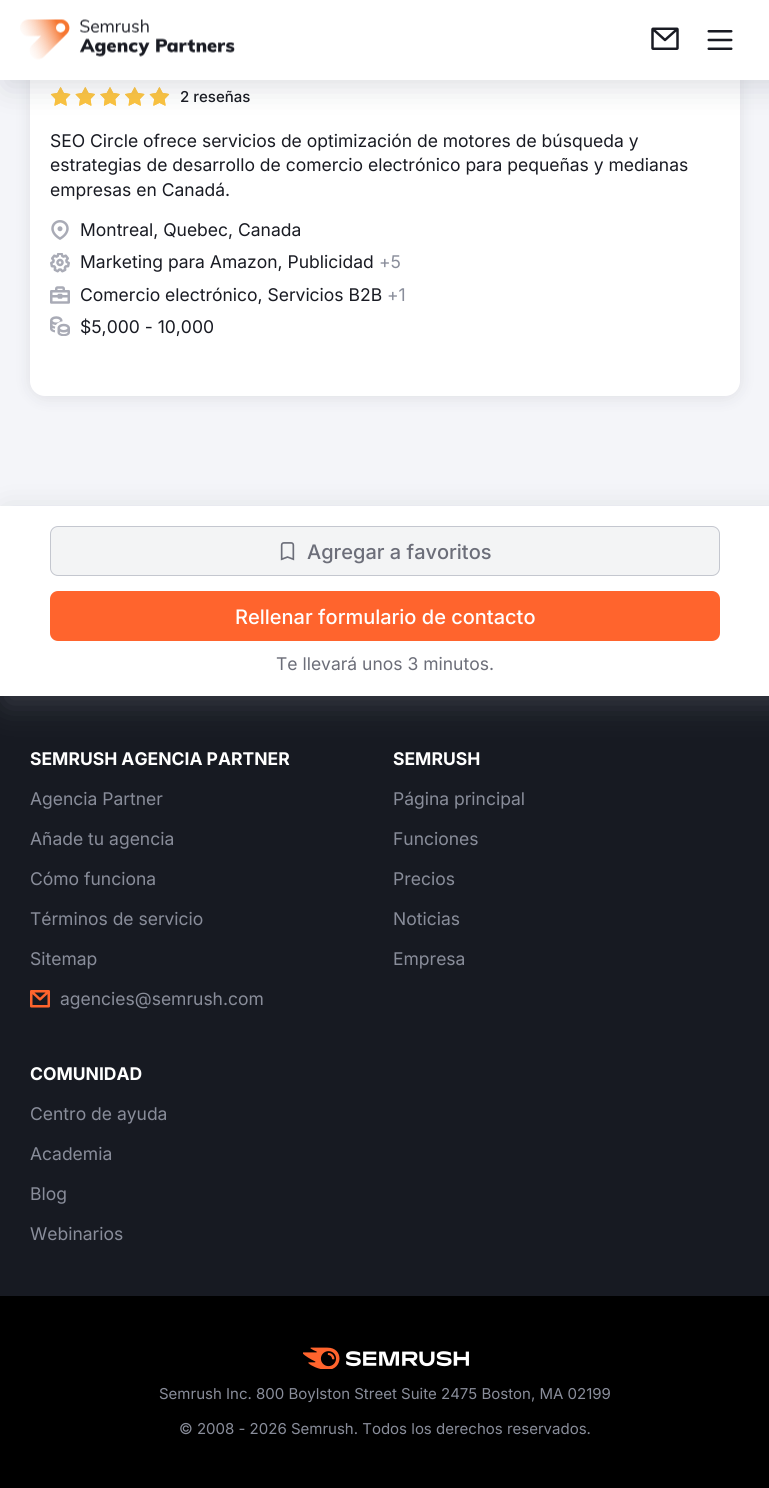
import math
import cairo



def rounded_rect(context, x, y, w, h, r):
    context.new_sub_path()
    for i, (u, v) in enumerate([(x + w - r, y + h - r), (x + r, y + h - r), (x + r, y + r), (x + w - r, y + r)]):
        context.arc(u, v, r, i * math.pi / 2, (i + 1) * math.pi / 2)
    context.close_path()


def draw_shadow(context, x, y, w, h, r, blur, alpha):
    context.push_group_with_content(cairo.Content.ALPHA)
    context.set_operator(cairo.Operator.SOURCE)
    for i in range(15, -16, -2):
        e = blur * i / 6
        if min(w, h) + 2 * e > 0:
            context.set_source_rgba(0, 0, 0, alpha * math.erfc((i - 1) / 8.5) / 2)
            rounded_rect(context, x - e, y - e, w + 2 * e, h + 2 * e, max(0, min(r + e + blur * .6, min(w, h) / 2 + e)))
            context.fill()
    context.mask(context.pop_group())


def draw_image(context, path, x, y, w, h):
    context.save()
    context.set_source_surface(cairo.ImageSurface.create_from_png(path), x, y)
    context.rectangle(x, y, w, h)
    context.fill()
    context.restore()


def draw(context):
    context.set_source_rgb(244 / 255, 245 / 255, 249 / 255)
    context.paint()
    context.set_source_rgb(25 / 255, 27 / 255, 35 / 255)
    draw_shadow(context, 30, -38, 710, 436, 15, 7.5, 0.1)
    context.set_source_rgb(1, 1, 1)
    rounded_rect(context, 30, -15, 710, 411, 15)
    context.fill()
    draw_image(context, "images/4.png", 50, 87, 120, 19)
    context.set_source_rgb(137 / 255, 141 / 255, 154 / 255)
    draw_shadow(context, 6, 6, 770, 80, 0, 15.5, 0.3)
    context.set_source_rgb(1, 1, 1)
    context.rectangle(0, 0, 769, 80)
    context.fill()
    draw_image(context, "images/1.png", 20, 19, 215, 41)
    draw_image(context, "images/2.png", 651, 27, 28, 23)
    draw_image(context, "images/3.png", 707, 30, 26, 20)
    draw_image(context, "images/5.png", 51, 220, 18, 20)
    draw_image(context, "images/6.png", 50, 253, 20, 20)
    draw_image(context, "images/7.png", 50, 286, 20, 18)
    draw_image(context, "images/8.png", 50, 316, 20, 20)
    context.set_source_rgb(23 / 255, 26 / 255, 34 / 255)
    context.rectangle(0, 696, 769, 600)
    context.fill()
    context.set_source_rgb(137 / 255, 141 / 255, 154 / 255)
    draw_shadow(context, 6, 513, 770, 190, 0, 15.5, 0.3)
    context.set_source_rgb(1, 1, 1)
    context.rectangle(0, 506, 769, 190)
    context.fill()
    context.set_source_rgb(243 / 255, 244 / 255, 245 / 255)
    rounded_rect(context, 50.5, 526.5, 669, 49, 7.5)
    context.fill_preserve()
    context.set_source_rgb(196 / 255, 199 / 255, 207 / 255)
    context.set_line_width(1)
    context.stroke()
    draw_image(context, "images/9.png", 280, 542, 15, 19)
    context.set_source_rgb(1, 100 / 255, 45 / 255)
    rounded_rect(context, 50, 591, 670, 50, 8)
    context.fill()
    draw_image(context, "images/10.png", 30, 990, 20, 18)
    context.set_source_rgb(0, 0, 0)
    context.rectangle(0, 1296, 769, 192)
    context.fill()
    draw_image(context, "images/11.png", 303, 1347, 166, 22)
    context.select_font_face("Inter Medium")
    context.set_font_size(15)
    context.set_source_rgb(25 / 255, 27 / 255, 35 / 255)
    context.move_to(180, 102)
    context.show_text("2 reseñas")
    context.select_font_face("Inter")
    context.set_font_size(17.5)
    context.move_to(50, 147)
    context.show_text("SEO Circle ofrece servicios de optimización de motores de búsqueda y")
    context.move_to(50, 171)
    context.show_text("estrategias de desarrollo de comercio electrónico para pequeñas y medianas")
    context.move_to(50, 196)
    context.show_text("empresas en Canadá.")
    context.move_to(80, 236)
    context.show_text("Montreal, Quebec, Canada")
    context.move_to(80, 268)
    context.show_text("Marketing para Amazon, Publicidad")
    context.set_source_rgb(137 / 255, 141 / 255, 154 / 255)
    context.move_to(379, 268)
    context.show_text("+5")
    context.set_source_rgb(25 / 255, 27 / 255, 35 / 255)
    context.move_to(80, 301)
    context.show_text("Comercio electrónico, Servicios B2B")
    context.set_source_rgb(137 / 255, 141 / 255, 154 / 255)
    context.move_to(387, 301)
    context.show_text("+1")
    context.set_source_rgb(25 / 255, 27 / 255, 35 / 255)
    context.move_to(80, 333)
    context.show_text("$5,000 - 10,000")
    context.select_font_face("Inter Medium")
    context.set_font_size(20)
    context.set_source_rgb(108 / 255, 110 / 255, 121 / 255)
    context.move_to(307, 559)
    context.show_text("Agregar a favoritos")
    context.set_source_rgb(1, 1, 1)
    context.move_to(235, 624)
    context.show_text("Rellenar formulario de contacto")
    context.select_font_face("Inter")
    context.set_font_size(17.5)
    context.set_source_rgb(108 / 255, 110 / 255, 121 / 255)
    context.move_to(276, 670)
    context.show_text("Te llevará unos 3 minutos.")
    context.select_font_face("Inter", cairo.FontSlant.NORMAL, cairo.FontWeight.BOLD)
    context.set_source_rgb(1, 1, 1)
    context.move_to(30, 765)
    context.show_text("SEMRUSH AGENCIA PARTNER")
    context.select_font_face("Inter")
    context.set_source_rgb(137 / 255, 141 / 255, 154 / 255)
    context.move_to(30, 805)
    context.show_text("Agencia Partner")
    context.move_to(30, 845)
    context.show_text("Añade tu agencia")
    context.move_to(30, 885)
    context.show_text("Cómo funciona")
    context.move_to(30, 925)
    context.show_text("Términos de servicio")
    context.move_to(30, 965)
    context.show_text("Sitemap")
    context.move_to(60, 1005)
    context.show_text("agencies@semrush.com")
    context.select_font_face("Inter", cairo.FontSlant.NORMAL, cairo.FontWeight.BOLD)
    context.set_source_rgb(1, 1, 1)
    context.move_to(393, 765)
    context.show_text("SEMRUSH")
    context.select_font_face("Inter")
    context.set_source_rgb(137 / 255, 141 / 255, 154 / 255)
    context.move_to(393, 805)
    context.show_text("Página principal")
    context.move_to(393, 845)
    context.show_text("Funciones")
    context.move_to(393, 885)
    context.show_text("Precios")
    context.move_to(393, 925)
    context.show_text("Noticias")
    context.move_to(393, 965)
    context.show_text("Empresa")
    context.select_font_face("Inter", cairo.FontSlant.NORMAL, cairo.FontWeight.BOLD)
    context.set_source_rgb(1, 1, 1)
    context.move_to(30, 1080)
    context.show_text("COMUNIDAD")
    context.select_font_face("Inter")
    context.set_source_rgb(137 / 255, 141 / 255, 154 / 255)
    context.move_to(30, 1120)
    context.show_text("Centro de ayuda")
    context.move_to(30, 1160)
    context.show_text("Academia")
    context.move_to(30, 1200)
    context.show_text("Blog")
    context.move_to(30, 1240)
    context.show_text("Webinarios")
    context.set_font_size(15)
    context.move_to(159, 1399)
    context.show_text("Semrush Inc. 800 Boylston Street Suite 2475 Boston, MA 02199")
    context.move_to(179, 1434)
    context.show_text("© 2008 - 2026 Semrush. Todos los derechos reservados.")


surface = cairo.ImageSurface(cairo.Format.RGB24, 769, 1488)
context = cairo.Context(surface)
options = cairo.FontOptions()
options.set_hint_metrics(cairo.HintMetrics.OFF)
options.set_hint_style(cairo.HintStyle.NONE)
context.set_font_options(options)
context.set_miter_limit(4)
draw(context)
surface.write_to_png("out.png")
